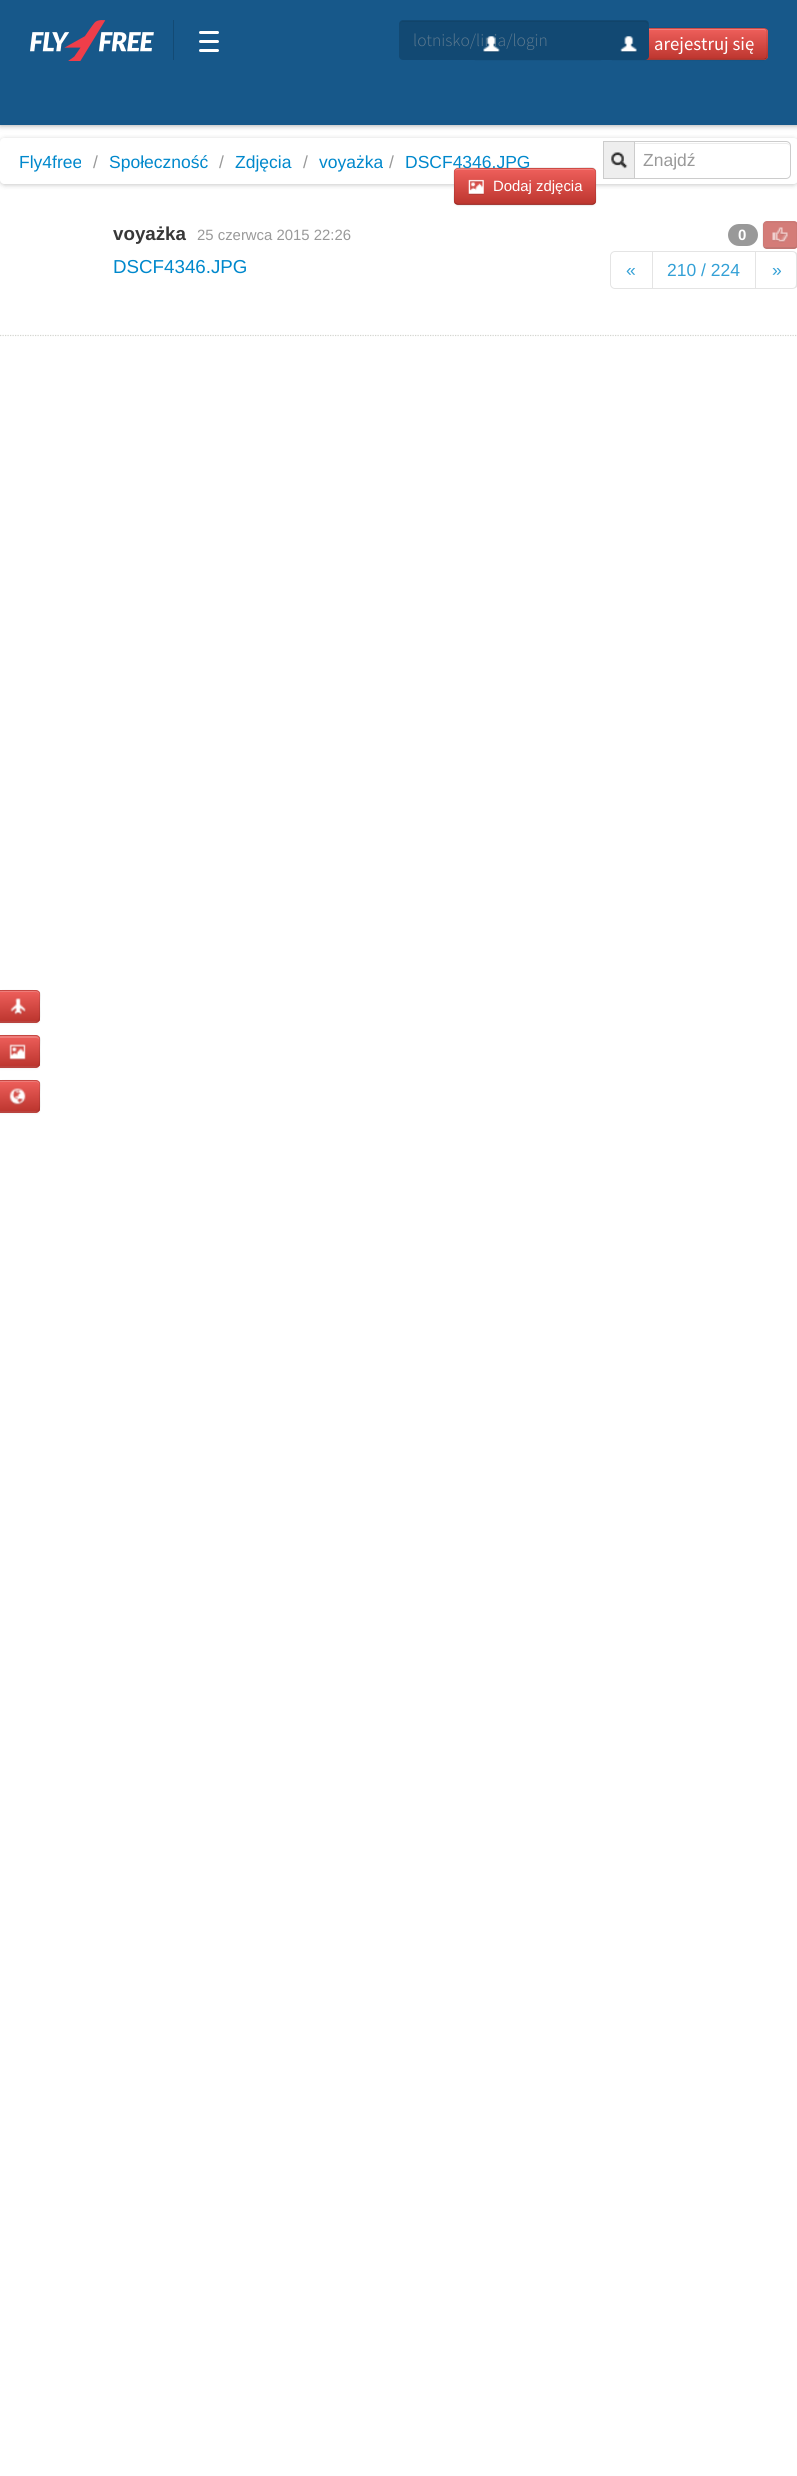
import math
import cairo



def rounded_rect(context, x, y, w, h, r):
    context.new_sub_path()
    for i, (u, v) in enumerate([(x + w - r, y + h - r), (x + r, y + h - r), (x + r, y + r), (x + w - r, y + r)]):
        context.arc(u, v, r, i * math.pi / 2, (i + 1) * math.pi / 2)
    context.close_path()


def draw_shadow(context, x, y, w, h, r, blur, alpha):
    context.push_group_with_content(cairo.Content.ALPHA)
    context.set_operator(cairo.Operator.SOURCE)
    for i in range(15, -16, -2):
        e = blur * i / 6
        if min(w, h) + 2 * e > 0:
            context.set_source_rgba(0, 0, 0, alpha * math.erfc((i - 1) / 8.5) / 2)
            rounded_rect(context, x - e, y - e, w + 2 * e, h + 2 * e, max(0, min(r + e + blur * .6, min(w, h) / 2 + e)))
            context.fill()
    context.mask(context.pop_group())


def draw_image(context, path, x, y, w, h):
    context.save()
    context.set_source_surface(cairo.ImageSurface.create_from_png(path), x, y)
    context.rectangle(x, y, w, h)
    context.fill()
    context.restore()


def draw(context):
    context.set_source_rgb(1, 1, 1)
    context.paint()
    context.set_source_rgb(0, 0, 0)
    draw_shadow(context, 0, 0, 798, 125, 0, 3, 0.4)
    context.set_source_rgb(23 / 255, 88 / 255, 138 / 255)
    context.rectangle(0, 0, 797, 125)
    context.fill()
    draw_image(context, "images/1.png", 30, 20, 124, 41)
    context.set_source_rgb(19 / 255, 74 / 255, 116 / 255)
    context.rectangle(173, 20, 1, 40)
    context.fill()
    context.set_source_rgb(1, 1, 1)
    rounded_rect(context, 199, 49, 20, 3, 1.5)
    context.fill()
    rounded_rect(context, 199, 31, 20, 3, 1.5)
    context.fill()
    rounded_rect(context, 199, 40, 20, 3, 1.5)
    context.fill()
    context.new_path()
    context.move_to(603.5, 58.5)
    context.line_to(601, 59.5)
    context.line_to(475, 59.5)
    context.line_to(473, 58.5)
    context.set_source_rgba(0, 0, 0, 0.25)
    context.set_line_width(1.2)
    context.stroke()
    context.set_source_rgb(218 / 255, 79 / 255, 73 / 255)
    rounded_rect(context, 609, 28, 159, 32, 4)
    context.fill()
    context.save()
    rounded_rect(context, 609, 28, 159, 32, 4)
    context.clip()
    gradient = cairo.LinearGradient(688, 29, 688, 59)
    gradient.add_color_stop_rgba(0, 238 / 255, 95 / 255, 91 / 255, 1)
    gradient.add_color_stop_rgba(1, 189 / 255, 54 / 255, 47 / 255, 1)
    context.set_source(gradient)
    context.rectangle(647, 29, 121, 30)
    context.fill()
    context.restore()
    context.set_source_rgb(241 / 255, 126 / 255, 123 / 255)
    context.new_path()
    context.move_to(612, 30)
    context.line_to(764, 30)
    context.curve_to(765, 30, 766, 31, 766, 32)
    context.curve_to(766, 30, 765, 29, 764, 29)
    context.line_to(612, 29)
    context.curve_to(611, 29, 610, 30, 610, 32)
    context.curve_to(610, 31, 611, 30, 612, 30)
    context.close_path()
    context.fill()
    context.new_path()
    context.move_to(766, 58.5)
    context.line_to(764, 59.5)
    context.line_to(612, 59.5)
    context.line_to(610.5, 58.5)
    context.set_source_rgba(0, 0, 0, 0.25)
    context.stroke()
    context.new_path()
    context.move_to(610.5, 58.5)
    context.curve_to(608, 56.5, 609.5, 46.5, 609.5, 44)
    context.line_to(609.5, 35.5)
    context.curve_to(609.5, 33, 608.5, 28, 612.5, 28)
    context.line_to(764, 28)
    context.curve_to(767.5, 28, 767, 33, 767, 35.5)
    context.line_to(767, 44)
    context.curve_to(767, 46.5, 768, 56.5, 766, 58.5)
    context.set_source_rgba(0, 0, 0, 0.1)
    context.stroke()
    context.set_source_rgb(18 / 255, 73 / 255, 115 / 255)
    rounded_rect(context, 399, 20, 250, 40, 4)
    context.fill()
    context.set_source_rgb(17 / 255, 68 / 255, 106 / 255)
    context.new_path()
    context.move_to(402, 22)
    context.line_to(645, 22)
    context.curve_to(646, 22, 648, 24, 648, 25)
    context.curve_to(648, 23, 648, 21, 646, 21)
    context.line_to(402, 21)
    context.curve_to(400, 22, 400, 24, 400, 25)
    context.curve_to(400, 24, 401, 22, 402, 22)
    context.close_path()
    context.fill()
    draw_image(context, "images/3.png", 620, 36, 17, 17)
    context.save()
    context.set_fill_rule(cairo.FillRule.EVEN_ODD)
    context.new_path()
    context.move_to(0, 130)
    context.line_to(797, 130)
    context.line_to(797, 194)
    context.line_to(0, 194)
    context.close_path()
    context.move_to(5, 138)
    context.line_to(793, 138)
    context.curve_to(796, 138, 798, 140, 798, 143)
    context.line_to(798, 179)
    context.curve_to(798, 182, 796, 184, 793, 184)
    context.line_to(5, 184)
    context.curve_to(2, 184, 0, 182, 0, 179)
    context.line_to(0, 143)
    context.curve_to(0, 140, 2, 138, 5, 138)
    context.close_path()
    context.clip()
    context.set_source_rgb(0, 0, 0)
    draw_shadow(context, 0, 139, 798, 46, 5, 2.5, 0.22)
    context.restore()
    context.set_source_rgb(238 / 255, 238 / 255, 238 / 255)
    context.rectangle(603.5, 141.5, 31, 37)
    context.fill_preserve()
    context.set_source_rgb(204 / 255, 204 / 255, 204 / 255)
    context.set_line_width(1)
    context.stroke()
    draw_image(context, "images/4.png", 611, 152, 17, 17)
    context.set_source_rgb(1, 1, 1)
    context.new_path()
    context.move_to(634, 141)
    context.line_to(786, 141)
    context.curve_to(789, 141, 791, 143, 791, 146)
    context.line_to(791, 174)
    context.curve_to(791, 177, 789, 179, 786, 179)
    context.line_to(634, 179)
    context.close_path()
    context.fill()
    context.set_source_rgb(236 / 255, 236 / 255, 236 / 255)
    context.new_path()
    context.move_to(635, 144)
    context.line_to(786, 144)
    context.curve_to(788, 144, 790, 145, 790, 148)
    context.curve_to(790, 145, 789, 143, 786, 143)
    context.line_to(635, 143)
    context.close_path()
    context.fill()
    context.new_path()
    context.move_to(634.5, 141.5)
    context.line_to(786, 141.5)
    context.curve_to(788.5, 141.5, 790.5, 143.5, 790.5, 146)
    context.line_to(790.5, 174)
    context.curve_to(790.5, 176.5, 788.5, 178.5, 786, 178.5)
    context.line_to(634.5, 178.5)
    context.close_path()
    context.set_source_rgb(204 / 255, 204 / 255, 204 / 255)
    context.stroke()
    context.set_source_rgb(0, 0, 0)
    draw_shadow(context, 454, 169, 142, 37, 4, 1, 0.05)
    context.set_source_rgb(218 / 255, 79 / 255, 73 / 255)
    rounded_rect(context, 454, 168, 142, 37, 4)
    context.fill()
    context.save()
    rounded_rect(context, 454, 168, 142, 37, 4)
    context.clip()
    gradient = cairo.LinearGradient(525, 169, 525, 204)
    gradient.add_color_stop_rgba(0, 238 / 255, 95 / 255, 91 / 255, 1)
    gradient.add_color_stop_rgba(1, 189 / 255, 54 / 255, 47 / 255, 1)
    context.set_source(gradient)
    context.rectangle(454, 169, 142, 35)
    context.fill()
    context.restore()
    context.set_source_rgba(1, 1, 1, 0.2)
    context.new_path()
    context.move_to(458, 170)
    context.line_to(592, 170)
    context.curve_to(594, 170, 595, 171, 595, 172)
    context.line_to(594, 170)
    context.line_to(592, 169)
    context.line_to(480, 169)
    context.curve_to(477, 169, 455, 164, 455, 172)
    context.curve_to(455, 171, 456, 170, 458, 170)
    context.close_path()
    context.fill()
    context.new_path()
    context.move_to(594.5, 203.5)
    context.line_to(592.5, 204.5)
    context.line_to(457.5, 204.5)
    context.line_to(455.5, 203.5)
    context.set_source_rgba(0, 0, 0, 0.25)
    context.set_line_width(1.2)
    context.stroke()
    context.new_path()
    context.move_to(455.5, 203.5)
    context.curve_to(453, 201, 454.5, 194, 454.5, 191)
    context.curve_to(454.5, 162.5, 449, 168, 480, 168)
    context.line_to(570, 168)
    context.curve_to(601, 168, 595.5, 162.5, 595.5, 191)
    context.curve_to(595.5, 194, 597, 201, 594.5, 203.5)
    context.set_source_rgba(0, 0, 0, 0.1)
    context.stroke()
    draw_image(context, "images/5.png", 468, 179, 16, 16)
    context.new_path()
    context.move_to(0, 335.5)
    context.line_to(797.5, 335.5)
    context.set_source_rgb(211 / 255, 213 / 255, 208 / 255)
    context.set_dash([1.25, 1.25])
    context.stroke()
    context.set_source_rgb(153 / 255, 153 / 255, 153 / 255)
    rounded_rect(context, 728, 224, 30, 22, 11)
    context.fill()
    context.set_source_rgb(212 / 255, 124 / 255, 120 / 255)
    rounded_rect(context, 763, 221, 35, 28, 4)
    context.fill()
    context.new_path()
    context.move_to(796, 247)
    context.curve_to(795.5, 248, 794.5, 248, 794, 248)
    context.line_to(766, 248)
    context.curve_to(765.5, 248, 764.5, 248, 764, 247)
    context.set_source_rgba(89 / 255, 89 / 255, 89 / 255, 0.25)
    context.set_dash([])
    context.stroke()
    context.new_path()
    context.move_to(764, 247)
    context.curve_to(763.5, 246.5, 763, 246, 763, 245)
    context.line_to(763, 225)
    context.curve_to(763, 224, 763.5, 223.5, 764, 223)
    context.curve_to(764.5, 222, 765.5, 222, 766, 222)
    context.line_to(794, 222)
    context.curve_to(794.5, 222, 795.5, 222, 796, 223)
    context.curve_to(796.5, 223.5, 797, 224, 797, 225)
    context.line_to(797, 245)
    context.curve_to(797, 246, 796.5, 246.5, 796, 247)
    context.set_source_rgba(89 / 255, 89 / 255, 89 / 255, 0.1)
    context.stroke()
    draw_image(context, "images/6.png", 772, 227, 16, 16)
    context.new_path()
    context.move_to(615, 251.5)
    context.line_to(652.5, 251.5)
    context.line_to(652.5, 288.5)
    context.line_to(615, 288.5)
    context.curve_to(612.5, 288.5, 610.5, 286.5, 610.5, 284)
    context.line_to(610.5, 256)
    context.curve_to(610.5, 253.5, 612.5, 251.5, 615, 251.5)
    context.close_path()
    context.set_source_rgb(228 / 255, 228 / 255, 228 / 255)
    context.set_line_width(1)
    context.stroke()
    context.rectangle(653, 251, 103, 1)
    context.fill()
    context.rectangle(755, 251, 1, 38)
    context.fill()
    context.rectangle(653, 288, 103, 1)
    context.fill()
    context.set_fill_rule(cairo.FillRule.EVEN_ODD)
    context.new_path()
    context.move_to(756, 251)
    context.line_to(792, 251)
    context.curve_to(795, 251, 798, 253, 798, 256)
    context.line_to(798, 284)
    context.curve_to(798, 287, 795, 289, 792, 289)
    context.line_to(756, 289)
    context.close_path()
    context.move_to(756, 252)
    context.line_to(792, 252)
    context.curve_to(795, 252, 796, 254, 796, 256)
    context.line_to(796, 284)
    context.curve_to(796, 286, 795, 288, 792, 288)
    context.line_to(756, 288)
    context.close_path()
    context.fill()
    context.set_source_rgb(0, 0, 0)
    draw_shadow(context, -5, 991, 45, 33, 4, 1, 0.05)
    context.set_source_rgb(218 / 255, 79 / 255, 73 / 255)
    rounded_rect(context, -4, 990, 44, 33, 4)
    context.fill()
    context.save()
    context.set_fill_rule(cairo.FillRule.WINDING)
    rounded_rect(context, -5, 990, 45, 33, 4)
    context.clip()
    gradient = cairo.LinearGradient(17, 991, 18, 1021)
    gradient.add_color_stop_rgba(0, 238 / 255, 95 / 255, 91 / 255, 1)
    gradient.add_color_stop_rgba(1, 189 / 255, 54 / 255, 47 / 255, 1)
    context.set_source(gradient)
    context.rectangle(0, 991, 40, 30)
    context.fill()
    context.restore()
    context.set_source_rgba(1, 1, 1, 0.2)
    context.set_fill_rule(cairo.FillRule.WINDING)
    context.new_path()
    context.move_to(-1, 992)
    context.line_to(36, 992)
    context.curve_to(38, 992, 39, 994, 39, 995)
    context.curve_to(39, 990, 35, 991, 30, 991)
    context.line_to(5, 991)
    context.curve_to(0, 991, -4, 990, -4, 995)
    context.curve_to(-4, 994, -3, 992, -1, 992)
    context.close_path()
    context.fill()
    context.new_path()
    context.move_to(38.5, 1021)
    context.line_to(36, 1022)
    context.line_to(-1, 1022)
    context.line_to(-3.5, 1021)
    context.set_source_rgb(164 / 255, 59 / 255, 55 / 255)
    context.set_line_width(1.2)
    context.stroke()
    context.new_path()
    context.move_to(-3.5, 1021)
    context.curve_to(-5.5, 1019, -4.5, 1009, -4.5, 1006)
    context.curve_to(-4.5, 992, -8, 990.5, 5, 990.5)
    context.line_to(30, 990.5)
    context.curve_to(43, 990.5, 39.5, 992, 39.5, 1006)
    context.curve_to(39.5, 1009, 40.5, 1019, 38.5, 1021)
    context.set_source_rgba(0, 0, 0, 0.1)
    context.stroke()
    draw_image(context, "images/7.png", 10, 998, 16, 17)
    context.set_source_rgb(0, 0, 0)
    draw_shadow(context, -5, 1036, 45, 33, 4, 1, 0.05)
    context.set_source_rgb(218 / 255, 79 / 255, 73 / 255)
    rounded_rect(context, -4, 1035, 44, 33, 4)
    context.fill()
    context.save()
    rounded_rect(context, -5, 1035, 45, 33, 4)
    context.clip()
    gradient = cairo.LinearGradient(17, 1036, 18, 1066)
    gradient.add_color_stop_rgba(0, 238 / 255, 95 / 255, 91 / 255, 1)
    gradient.add_color_stop_rgba(1, 189 / 255, 54 / 255, 47 / 255, 1)
    context.set_source(gradient)
    context.rectangle(0, 1036, 40, 30)
    context.fill()
    context.restore()
    context.set_source_rgba(1, 1, 1, 0.2)
    context.new_path()
    context.move_to(-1, 1038)
    context.line_to(36, 1038)
    context.curve_to(38, 1038, 39, 1039, 39, 1040)
    context.curve_to(39, 1035, 35, 1036, 30, 1036)
    context.line_to(5, 1036)
    context.curve_to(0, 1036, -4, 1035, -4, 1040)
    context.curve_to(-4, 1039, -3, 1038, -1, 1038)
    context.close_path()
    context.fill()
    context.new_path()
    context.move_to(38.5, 1066)
    context.line_to(36, 1067)
    context.line_to(-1, 1067)
    context.line_to(-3.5, 1066)
    context.set_source_rgb(164 / 255, 59 / 255, 55 / 255)
    context.stroke()
    context.new_path()
    context.move_to(-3.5, 1066)
    context.curve_to(-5.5, 1064, -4.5, 1054, -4.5, 1051)
    context.curve_to(-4.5, 1037, -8, 1035.5, 5, 1035.5)
    context.line_to(30, 1035.5)
    context.curve_to(43, 1035.5, 39.5, 1037, 39.5, 1051)
    context.curve_to(39.5, 1054, 40.5, 1064, 38.5, 1066)
    context.set_source_rgba(0, 0, 0, 0.1)
    context.stroke()
    draw_image(context, "images/8.png", 9, 1044, 17, 17)
    context.set_source_rgb(0, 0, 0)
    draw_shadow(context, -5, 1081, 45, 33, 4, 1, 0.05)
    context.set_source_rgb(218 / 255, 79 / 255, 73 / 255)
    rounded_rect(context, -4, 1080, 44, 33, 4)
    context.fill()
    context.save()
    rounded_rect(context, -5, 1080, 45, 33, 4)
    context.clip()
    gradient = cairo.LinearGradient(17, 1081, 18, 1111)
    gradient.add_color_stop_rgba(0, 238 / 255, 95 / 255, 91 / 255, 1)
    gradient.add_color_stop_rgba(1, 189 / 255, 54 / 255, 47 / 255, 1)
    context.set_source(gradient)
    context.rectangle(0, 1081, 40, 30)
    context.fill()
    context.restore()
    context.set_source_rgba(1, 1, 1, 0.2)
    context.new_path()
    context.move_to(-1, 1082)
    context.line_to(36, 1082)
    context.curve_to(38, 1082, 39, 1084, 39, 1085)
    context.curve_to(39, 1080, 35, 1081, 30, 1081)
    context.line_to(5, 1081)
    context.curve_to(0, 1081, -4, 1080, -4, 1085)
    context.curve_to(-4, 1084, -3, 1082, -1, 1082)
    context.close_path()
    context.fill()
    context.new_path()
    context.move_to(38.5, 1111)
    context.line_to(36, 1112)
    context.line_to(-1, 1112)
    context.line_to(-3.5, 1111)
    context.set_source_rgb(164 / 255, 59 / 255, 55 / 255)
    context.stroke()
    context.new_path()
    context.move_to(-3.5, 1111)
    context.curve_to(-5.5, 1109, -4.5, 1099, -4.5, 1096)
    context.curve_to(-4.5, 1082, -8, 1080.5, 5, 1080.5)
    context.line_to(30, 1080.5)
    context.curve_to(43, 1080.5, 39.5, 1082, 39.5, 1096)
    context.curve_to(39.5, 1099, 40.5, 1109, 38.5, 1111)
    context.set_source_rgba(0, 0, 0, 0.1)
    context.stroke()
    draw_image(context, "images/9.png", 9, 1088, 17, 17)
    context.select_font_face("Source Sans Pro Light")
    context.set_font_size(17.5)
    context.set_source_rgb(94 / 255, 122 / 255, 143 / 255)
    context.move_to(413, 46)
    context.show_text("lotnisko/linia/login")
    draw_image(context, "images/2.png", 483, 36, 17, 17)
    context.select_font_face("Source Sans Pro")
    context.set_font_size(18.75)
    context.set_source_rgb(1, 1, 1)
    context.move_to(654, 50)
    context.show_text("arejestruj się")
    context.select_font_face("Liberation Sans")
    context.set_font_size(17.5)
    context.set_source_rgb(0, 136 / 255, 204 / 255)
    context.move_to(19, 168)
    context.show_text("Fly4free")
    context.set_source_rgb(153 / 255, 153 / 255, 153 / 255)
    context.move_to(93, 168)
    context.show_text("/")
    context.set_source_rgb(0, 136 / 255, 204 / 255)
    context.move_to(109, 168)
    context.show_text("Społeczność")
    context.set_source_rgb(153 / 255, 153 / 255, 153 / 255)
    context.move_to(219, 168)
    context.show_text("/")
    context.set_source_rgb(0, 136 / 255, 204 / 255)
    context.move_to(235, 168)
    context.show_text("Zdjęcia")
    context.set_source_rgb(153 / 255, 153 / 255, 153 / 255)
    context.move_to(303, 168)
    context.show_text("/")
    context.set_source_rgb(0, 136 / 255, 204 / 255)
    context.move_to(319, 168)
    context.show_text("voyażka")
    context.set_source_rgb(153 / 255, 153 / 255, 153 / 255)
    context.move_to(389, 168)
    context.show_text("/")
    context.set_source_rgb(0, 136 / 255, 204 / 255)
    context.move_to(405, 168)
    context.show_text("DSCF4346.JPG")
    context.set_source_rgb(153 / 255, 153 / 255, 153 / 255)
    context.move_to(643, 166)
    context.show_text("Znajdź")
    context.set_font_size(14.9)
    context.set_source_rgb(1, 1, 1)
    context.move_to(493, 191)
    context.show_text("Dodaj zdjęcia")
    context.select_font_face("Liberation Sans", cairo.FontSlant.NORMAL, cairo.FontWeight.BOLD)
    context.set_font_size(18.75)
    context.set_source_rgb(56 / 255, 56 / 255, 56 / 255)
    context.move_to(113, 240)
    context.show_text("voyażka")
    context.select_font_face("Liberation Sans")
    context.set_font_size(14.9)
    context.set_source_rgb(153 / 255, 153 / 255, 153 / 255)
    context.move_to(197, 240)
    context.show_text("25 czerwca 2015 22:26")
    context.select_font_face("Liberation Sans", cairo.FontSlant.NORMAL, cairo.FontWeight.BOLD)
    context.set_font_size(15)
    context.set_source_rgb(1, 1, 1)
    context.move_to(738, 240)
    context.show_text("0")
    context.select_font_face("Liberation Sans")
    context.set_font_size(18.75)
    context.set_source_rgb(0, 136 / 255, 204 / 255)
    context.move_to(113, 273)
    context.show_text("DSCF4346.JPG")
    context.set_font_size(17.5)
    context.set_source_rgb(51 / 255, 160 / 255, 214 / 255)
    context.move_to(626, 276)
    context.show_text("«")
    context.move_to(667, 276)
    context.show_text("210 / 224")
    context.move_to(772, 276)
    context.show_text("»")


surface = cairo.ImageSurface(cairo.Format.RGB24, 797, 2476)
context = cairo.Context(surface)
options = cairo.FontOptions()
options.set_hint_metrics(cairo.HintMetrics.OFF)
options.set_hint_style(cairo.HintStyle.NONE)
context.set_font_options(options)
context.set_miter_limit(4)
draw(context)
surface.write_to_png("out.png")
